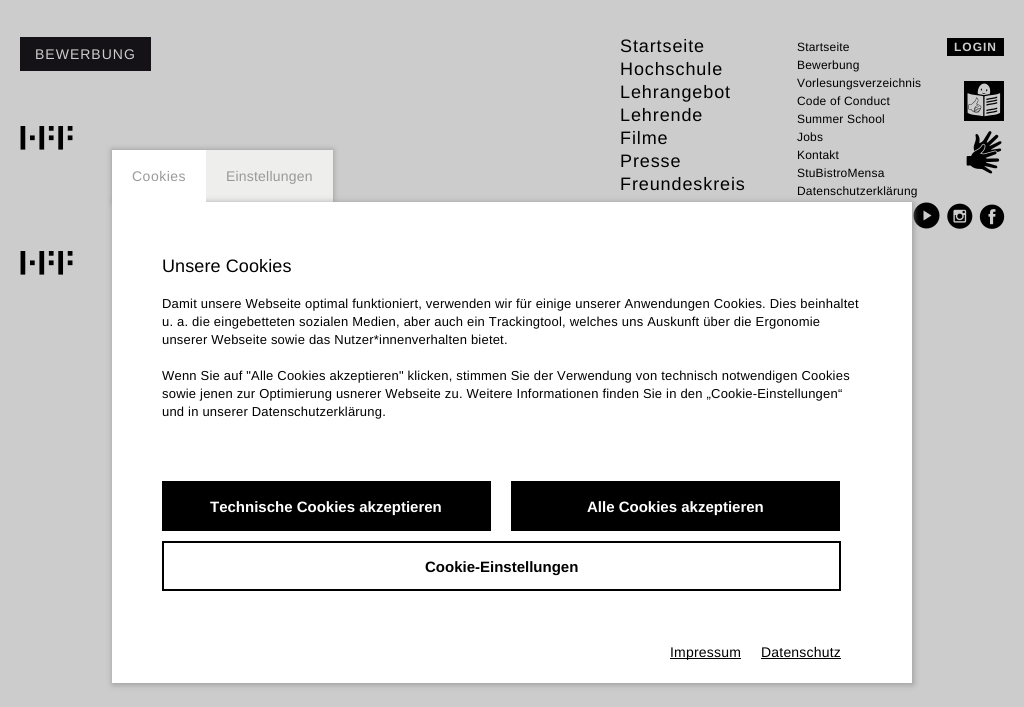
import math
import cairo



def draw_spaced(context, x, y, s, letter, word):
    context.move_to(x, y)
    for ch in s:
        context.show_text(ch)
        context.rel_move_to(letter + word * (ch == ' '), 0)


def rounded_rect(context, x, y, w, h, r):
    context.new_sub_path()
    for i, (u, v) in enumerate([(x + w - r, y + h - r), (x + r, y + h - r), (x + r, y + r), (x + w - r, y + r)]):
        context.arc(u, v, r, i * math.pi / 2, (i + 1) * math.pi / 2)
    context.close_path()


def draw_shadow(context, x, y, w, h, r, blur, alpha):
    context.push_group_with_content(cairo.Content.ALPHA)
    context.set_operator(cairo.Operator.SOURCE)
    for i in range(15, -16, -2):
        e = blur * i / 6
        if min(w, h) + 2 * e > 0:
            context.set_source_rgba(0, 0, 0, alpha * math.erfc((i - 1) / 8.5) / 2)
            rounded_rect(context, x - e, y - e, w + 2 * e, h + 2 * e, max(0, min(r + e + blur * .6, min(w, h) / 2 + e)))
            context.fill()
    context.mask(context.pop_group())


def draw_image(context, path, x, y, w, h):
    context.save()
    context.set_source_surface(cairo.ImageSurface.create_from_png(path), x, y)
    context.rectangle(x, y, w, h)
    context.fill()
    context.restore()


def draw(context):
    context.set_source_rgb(204 / 255, 204 / 255, 204 / 255)
    context.paint()
    context.set_source_rgb(20 / 255, 18 / 255, 22 / 255)
    context.rectangle(20, 37, 131, 34)
    context.fill()
    context.set_source_rgb(0, 0, 0)
    context.rectangle(947, 38, 57, 18)
    context.fill()
    draw_image(context, "images/1.png", 964, 81, 40, 40)
    draw_image(context, "images/2.png", 966, 131, 36, 43)
    draw_image(context, "images/3.png", 20, 126, 53, 24)
    context.arc(926.5, 215.5, 13, 0, 2 * math.pi)
    context.fill()
    context.set_source_rgb(204 / 255, 204 / 255, 204 / 255)
    context.set_fill_rule(cairo.FillRule.EVEN_ODD)
    context.new_path()
    context.move_to(923.5, 210.5)
    context.line_to(923.5, 220.5)
    context.line_to(931.5, 215.5)
    context.close_path()
    context.fill()
    draw_image(context, "images/4.png", 947, 203, 26, 26)
    draw_image(context, "images/5.png", 979, 204, 26, 25)
    draw_image(context, "images/3.png", 20, 251, 53, 24)
    context.set_source_rgb(144 / 255, 140 / 255, 140 / 255)
    draw_shadow(context, 112, 150, 221, 52, 0, 3, 0.87)
    context.set_source_rgb(238 / 255, 238 / 255, 237 / 255)
    context.rectangle(206, 150, 127, 52)
    context.fill()
    context.set_source_rgb(144 / 255, 140 / 255, 140 / 255)
    draw_shadow(context, 113, 203, 800, 481, 0, 3.5, 0.87)
    context.set_source_rgb(1, 1, 1)
    context.rectangle(112, 150, 94, 52)
    context.fill()
    context.rectangle(112, 202, 800, 481)
    context.fill()
    context.set_source_rgb(0, 0, 0)
    context.rectangle(162, 481, 329, 50)
    context.fill()
    context.rectangle(511, 481, 329, 50)
    context.fill()
    context.rectangle(163, 542, 677, 48)
    context.stroke()
    context.rectangle(670, 658, 71, 1)
    context.fill()
    context.rectangle(761, 658, 80, 1)
    context.fill()
    context.select_font_face("Liberation Sans")
    context.set_font_size(14)
    context.set_source_rgb(204 / 255, 204 / 255, 204 / 255)
    draw_spaced(context, 35, 59, "BEWERBUNG", 1, 0)
    context.set_font_size(18)
    context.set_source_rgb(0, 0, 0)
    draw_spaced(context, 620, 52, "Startseite", 0.9, 0)
    draw_spaced(context, 620, 75, "Hochschule", 0.9, 0)
    draw_spaced(context, 620, 98, "Lehrangebot", 0.9, 0)
    draw_spaced(context, 620, 121, "Lehrende", 0.9, 0)
    draw_spaced(context, 620, 144, "Filme", 0.9, 0)
    draw_spaced(context, 620, 167, "Presse", 0.9, 0)
    draw_spaced(context, 620, 190, "Freundeskreis", 0.9, 0)
    context.set_font_size(12)
    draw_spaced(context, 797, 51, "Startseite", 0.2, 0)
    draw_spaced(context, 797, 69, "Bewerbung", 0.2, 0)
    draw_spaced(context, 797, 87, "Vorlesungsverzeichnis", 0.2, 0)
    draw_spaced(context, 797, 105, "Code of Conduct", 0.2, 0)
    draw_spaced(context, 797, 123, "Summer School", 0.2, 0)
    draw_spaced(context, 797, 141, "Jobs", 0.2, 0)
    draw_spaced(context, 797, 159, "Kontakt", 0.2, 0)
    draw_spaced(context, 797, 177, "StuBistroMensa", 0.2, 0)
    draw_spaced(context, 797, 195, "Datenschutzerklärung", 0.2, 0)
    context.select_font_face("Liberation Sans", cairo.FontSlant.NORMAL, cairo.FontWeight.BOLD)
    context.set_source_rgb(204 / 255, 204 / 255, 204 / 255)
    draw_spaced(context, 954, 51, "LOGIN", 1, 0)
    context.select_font_face("Liberation Sans")
    context.set_font_size(14)
    context.set_source_rgb(153 / 255, 153 / 255, 153 / 255)
    draw_spaced(context, 132, 181, "Cookies", 0.5, 0)
    draw_spaced(context, 226, 181, "Einstellungen", 0.2, 0)
    context.set_font_size(18)
    context.set_source_rgb(0, 0, 0)
    draw_spaced(context, 162, 272, "Unsere Cookies", 0.1, 0)
    context.set_font_size(13)
    draw_spaced(context, 162, 308, "Damit unsere Webseite optimal funktioniert, verwenden wir für einige unserer Anwendungen Cookies. Dies beinhaltet", 0.2, 0)
    draw_spaced(context, 162, 326, "u. a. die eingebetteten sozialen Medien, aber auch ein Trackingtool, welches uns Auskunft über die Ergonomie", 0.2, 0)
    draw_spaced(context, 162, 344, "unserer Webseite sowie das Nutzer*innenverhalten bietet.", 0.2, 0)
    draw_spaced(context, 162, 380, "Wenn Sie auf \"Alle Cookies akzeptieren\" klicken, stimmen Sie der Verwendung von technisch notwendigen Cookies", 0.2, 0)
    draw_spaced(context, 162, 398, "sowie jenen zur Optimierung usnerer Webseite zu. Weitere Informationen finden Sie in den „Cookie-Einstellungen“", 0.2, 0)
    draw_spaced(context, 162, 416, "und in unserer Datenschutzerklärung.", 0.2, 0)
    context.select_font_face("Liberation Sans", cairo.FontSlant.NORMAL, cairo.FontWeight.BOLD)
    context.set_font_size(15)
    context.set_source_rgb(1, 1, 1)
    context.move_to(210, 512)
    context.show_text("Technische Cookies akzeptieren")
    context.move_to(587, 512)
    context.show_text("Alle Cookies akzeptieren")
    context.set_source_rgb(0, 0, 0)
    context.move_to(425, 572)
    context.show_text("Cookie-Einstellungen")
    context.select_font_face("Liberation Sans")
    context.set_font_size(14)
    draw_spaced(context, 670, 657, "Impressum", 0.2, 0)
    draw_spaced(context, 761, 657, "Datenschutz", 0.2, 0)


surface = cairo.ImageSurface(cairo.Format.RGB24, 1024, 707)
context = cairo.Context(surface)
options = cairo.FontOptions()
options.set_hint_metrics(cairo.HintMetrics.OFF)
options.set_hint_style(cairo.HintStyle.NONE)
context.set_font_options(options)
context.set_miter_limit(4)
draw(context)
surface.write_to_png("out.png")
